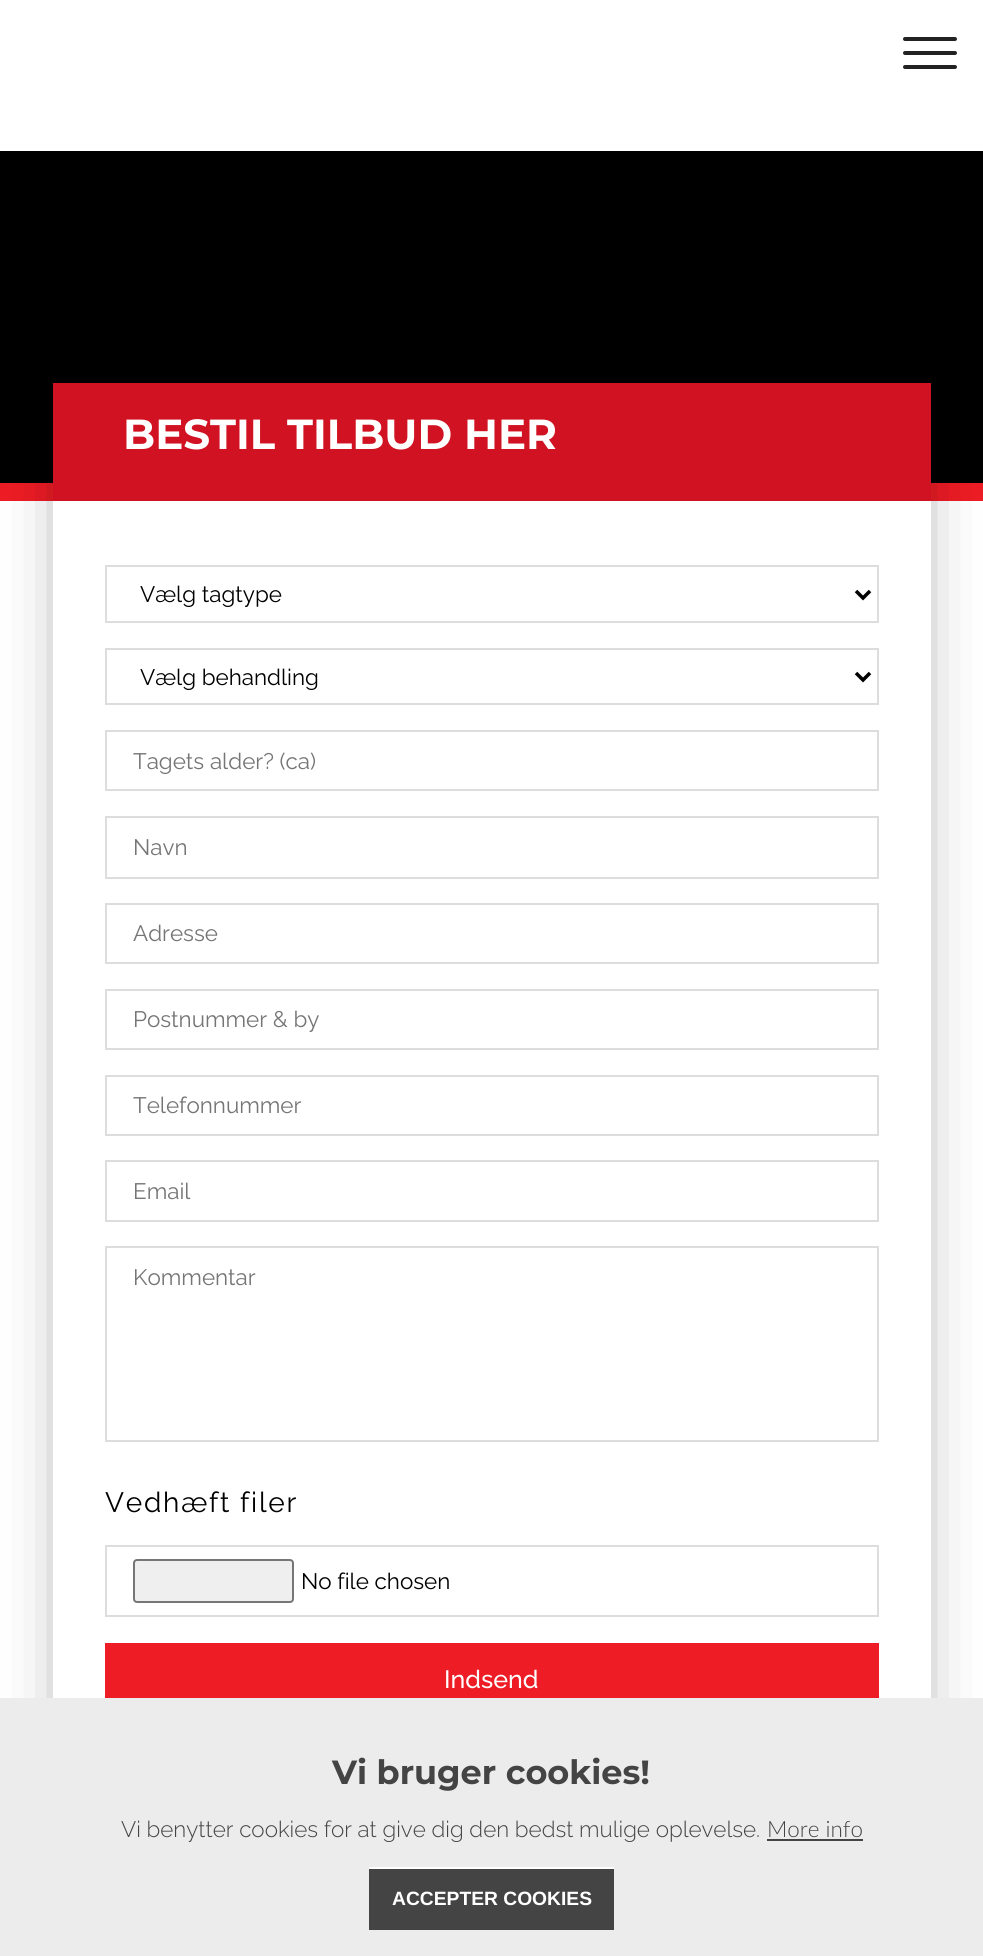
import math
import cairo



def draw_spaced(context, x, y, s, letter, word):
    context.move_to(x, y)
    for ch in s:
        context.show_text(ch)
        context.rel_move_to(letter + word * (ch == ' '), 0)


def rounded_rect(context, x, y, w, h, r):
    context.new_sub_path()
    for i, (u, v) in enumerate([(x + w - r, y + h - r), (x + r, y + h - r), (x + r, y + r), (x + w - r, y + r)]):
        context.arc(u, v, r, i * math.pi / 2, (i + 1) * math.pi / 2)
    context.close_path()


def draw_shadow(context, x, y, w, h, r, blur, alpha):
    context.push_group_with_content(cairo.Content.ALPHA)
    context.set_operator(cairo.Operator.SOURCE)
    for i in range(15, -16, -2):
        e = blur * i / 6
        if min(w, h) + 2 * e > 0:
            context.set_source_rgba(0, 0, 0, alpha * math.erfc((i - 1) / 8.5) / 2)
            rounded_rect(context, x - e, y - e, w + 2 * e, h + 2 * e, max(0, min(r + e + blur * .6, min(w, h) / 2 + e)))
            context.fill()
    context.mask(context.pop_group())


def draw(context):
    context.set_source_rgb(1, 1, 1)
    context.paint()
    context.set_source_rgb(34 / 255, 34 / 255, 34 / 255)
    rounded_rect(context, 903, 51, 54, 4, 2)
    context.fill()
    rounded_rect(context, 903, 37, 54, 4, 2)
    context.fill()
    rounded_rect(context, 903, 65, 54, 4, 2)
    context.fill()
    context.set_source_rgb(0, 0, 0)
    context.rectangle(0, 151, 983, 332)
    context.fill()
    context.set_source_rgb(237 / 255, 28 / 255, 37 / 255)
    context.rectangle(0, 483, 983, 18)
    context.fill()
    context.set_source_rgb(0, 0, 0)
    draw_shadow(context, 86, 417, 812, 1331, 0, 34, 0.75)
    context.set_source_rgb(209 / 255, 18 / 255, 34 / 255)
    context.rectangle(53, 383, 878, 118)
    context.fill()
    context.set_source_rgb(1, 1, 1)
    context.rectangle(53, 501, 878, 1197)
    context.fill()
    context.rectangle(106, 566, 772, 56)
    context.set_source_rgb(221 / 255, 221 / 255, 221 / 255)
    context.stroke()
    context.new_path()
    context.move_to(856, 591)
    context.line_to(863, 598)
    context.line_to(870, 591)
    context.set_source_rgb(0, 0, 0)
    context.set_line_width(3.5)
    context.stroke()
    context.rectangle(106, 649, 772, 55)
    context.set_source_rgb(221 / 255, 221 / 255, 221 / 255)
    context.set_line_width(2)
    context.stroke()
    context.new_path()
    context.move_to(856, 673)
    context.line_to(863, 680)
    context.line_to(870, 673)
    context.set_source_rgb(0, 0, 0)
    context.set_line_width(3.5)
    context.stroke()
    context.rectangle(106, 731, 772, 59)
    context.set_source_rgb(221 / 255, 221 / 255, 221 / 255)
    context.set_line_width(2)
    context.stroke()
    context.rectangle(106, 817, 772, 61)
    context.stroke()
    context.rectangle(106, 904, 772, 59)
    context.stroke()
    context.rectangle(106, 990, 772, 59)
    context.stroke()
    context.rectangle(106, 1076, 772, 59)
    context.stroke()
    context.rectangle(106, 1161, 772, 60)
    context.stroke()
    context.rectangle(106, 1247, 772, 194)
    context.stroke()
    context.rectangle(106, 1546, 772, 70)
    context.stroke()
    context.set_source_rgb(239 / 255, 239 / 255, 239 / 255)
    rounded_rect(context, 134, 1560, 159, 42, 3)
    context.fill_preserve()
    context.set_source_rgb(118 / 255, 118 / 255, 118 / 255)
    context.stroke()
    context.set_source_rgb(237 / 255, 28 / 255, 37 / 255)
    context.rectangle(105, 1643, 774, 55)
    context.fill()
    context.set_source_rgb(236 / 255, 236 / 255, 236 / 255)
    context.rectangle(0, 1698, 983, 258)
    context.fill()
    context.set_source_rgb(68 / 255, 68 / 255, 68 / 255)
    context.rectangle(767, 1839, 96, 2)
    context.fill()
    context.rectangle(369, 1869, 245, 61)
    context.fill()
    context.set_source_rgb(1, 1, 1)
    context.rectangle(369, 1867, 245, 2)
    context.fill()
    context.select_font_face("Montserrat", cairo.FontSlant.NORMAL, cairo.FontWeight.BOLD)
    context.set_font_size(42)
    context.move_to(123, 449)
    context.show_text("BESTIL TILBUD HER")
    context.select_font_face("Raleway")
    context.set_font_size(22.4)
    context.set_source_rgb(0, 0, 0)
    context.move_to(140, 602)
    context.show_text("Vælg tagtype")
    context.move_to(140, 685)
    context.show_text("Vælg behandling")
    context.set_source_rgb(117 / 255, 117 / 255, 117 / 255)
    context.move_to(133, 769)
    context.show_text("Tagets alder? (ca)")
    context.move_to(133, 855)
    context.show_text("Navn")
    context.move_to(133, 941)
    context.show_text("Adresse")
    context.move_to(133, 1027)
    context.show_text("Postnummer & by")
    context.move_to(133, 1113)
    context.show_text("Telefonnummer")
    context.move_to(133, 1199)
    context.show_text("Email")
    context.move_to(133, 1285)
    context.show_text("Kommentar")
    context.set_font_size(28)
    context.set_source_rgb(0, 0, 0)
    draw_spaced(context, 105, 1512, "Vedhæft filer", 1.75, 0)
    context.set_font_size(22.4)
    context.move_to(301, 1589)
    context.show_text("No file chosen")
    context.select_font_face("Raleway Medium")
    context.set_font_size(25)
    context.set_source_rgb(1, 1, 1)
    context.move_to(444, 1688)
    context.show_text("Indsend")
    context.select_font_face("Montserrat", cairo.FontSlant.NORMAL, cairo.FontWeight.BOLD)
    context.set_font_size(33.5)
    context.set_source_rgb(68 / 255, 68 / 255, 68 / 255)
    context.move_to(332, 1784)
    context.show_text("Vi bruger cookies!")
    context.select_font_face("Raleway Light")
    context.set_font_size(22.4)
    context.move_to(121, 1837)
    context.show_text("Vi benytter cookies for at give dig den bedst mulige oplevelse.")
    context.select_font_face("Lato Light")
    context.move_to(767, 1837)
    context.show_text("More info")
    context.select_font_face("Liberation Sans", cairo.FontSlant.NORMAL, cairo.FontWeight.BOLD)
    context.set_font_size(19.25)
    context.set_source_rgb(1, 1, 1)
    context.move_to(392, 1905)
    context.show_text("ACCEPTER COOKIES")


surface = cairo.ImageSurface(cairo.Format.RGB24, 983, 1956)
context = cairo.Context(surface)
options = cairo.FontOptions()
options.set_hint_metrics(cairo.HintMetrics.OFF)
options.set_hint_style(cairo.HintStyle.NONE)
context.set_font_options(options)
context.set_miter_limit(4)
draw(context)
surface.write_to_png("out.png")
